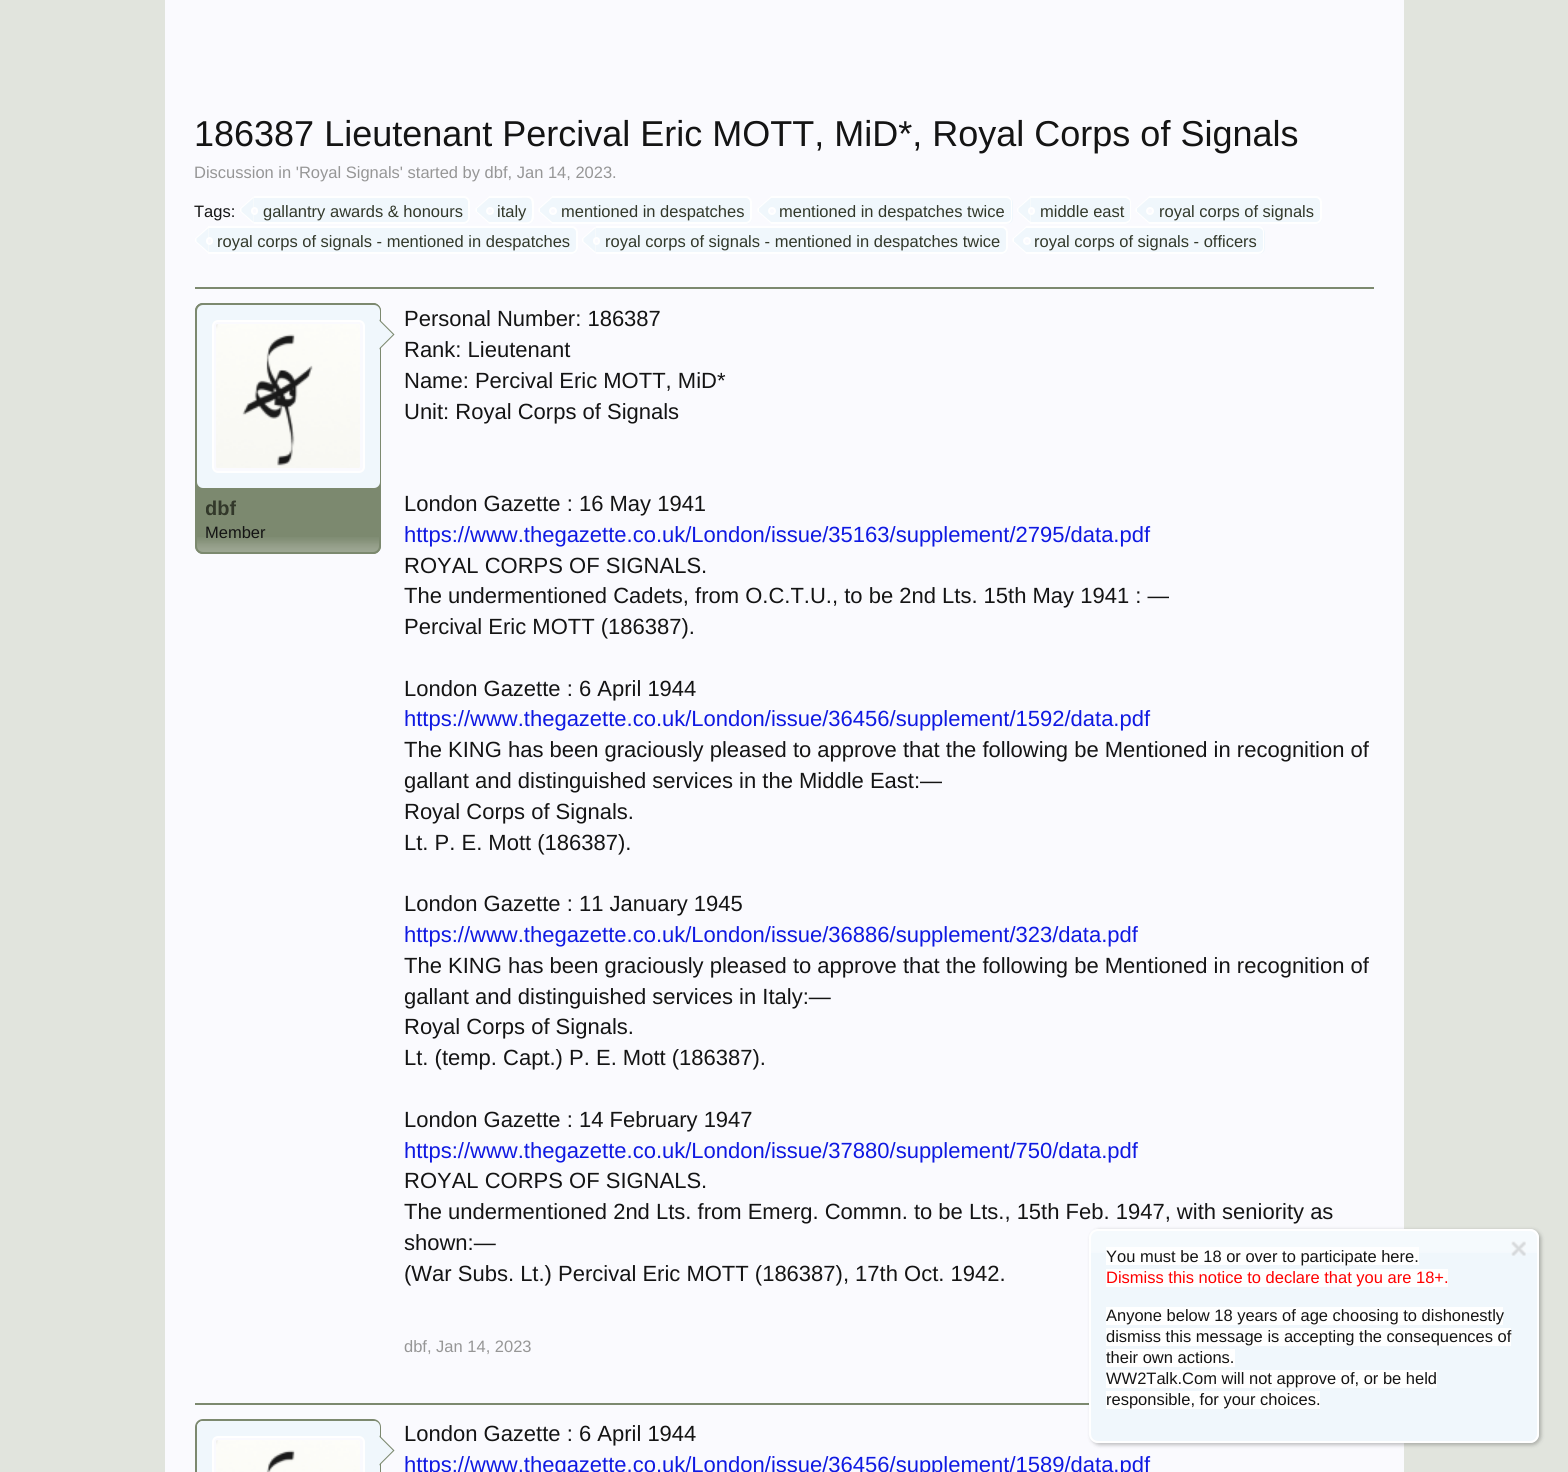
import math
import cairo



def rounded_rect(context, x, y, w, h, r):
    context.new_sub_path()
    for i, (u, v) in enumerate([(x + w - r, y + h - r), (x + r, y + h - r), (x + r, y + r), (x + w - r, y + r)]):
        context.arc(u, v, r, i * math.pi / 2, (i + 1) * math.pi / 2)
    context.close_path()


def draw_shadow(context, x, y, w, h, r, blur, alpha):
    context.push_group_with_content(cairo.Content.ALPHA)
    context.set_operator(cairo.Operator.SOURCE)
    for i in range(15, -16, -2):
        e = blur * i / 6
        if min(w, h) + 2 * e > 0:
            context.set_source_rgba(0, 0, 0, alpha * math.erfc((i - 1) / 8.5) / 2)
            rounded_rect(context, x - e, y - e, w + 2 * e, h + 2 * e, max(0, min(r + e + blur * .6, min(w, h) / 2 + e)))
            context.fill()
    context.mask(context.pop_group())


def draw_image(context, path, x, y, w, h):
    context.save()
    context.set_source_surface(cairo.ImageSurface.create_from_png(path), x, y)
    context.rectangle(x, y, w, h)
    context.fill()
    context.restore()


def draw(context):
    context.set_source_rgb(225 / 255, 228 / 255, 221 / 255)
    context.paint()
    context.set_source_rgb(250 / 255, 250 / 255, 254 / 255)
    context.rectangle(165, 0, 1239, 1472)
    context.fill()
    context.set_source_rgb(240 / 255, 247 / 255, 252 / 255)
    context.new_path()
    context.move_to(254, 197)
    context.line_to(464, 197)
    context.curve_to(467.5, 197, 470, 199.5, 470, 203)
    context.line_to(470, 218)
    context.curve_to(470, 221.5, 467.5, 224, 464, 224)
    context.line_to(254, 224)
    context.close_path()
    context.fill()
    context.set_source_rgb(1, 1, 1)
    context.set_fill_rule(cairo.FillRule.EVEN_ODD)
    context.new_path()
    context.move_to(254, 196)
    context.line_to(464, 196)
    context.curve_to(467, 196, 470, 199, 470, 202)
    context.line_to(470, 218)
    context.curve_to(470, 221, 467, 224, 464, 224)
    context.line_to(254, 224)
    context.close_path()
    context.move_to(254, 198)
    context.line_to(464, 198)
    context.curve_to(466, 198, 468, 200, 468, 202)
    context.line_to(468, 218)
    context.curve_to(468, 220, 466, 222, 464, 222)
    context.line_to(254, 222)
    context.close_path()
    context.fill()
    context.set_fill_rule(cairo.FillRule.WINDING)
    context.new_path()
    context.move_to(253.5, 196.5)
    context.line_to(253.5, 223.5)
    context.line_to(240, 211.5)
    context.line_to(240, 208.5)
    context.close_path()
    context.fill()
    context.set_source_rgb(240 / 255, 247 / 255, 252 / 255)
    context.new_path()
    context.move_to(253.5, 198)
    context.line_to(253.5, 222)
    context.line_to(241.5, 211.5)
    context.line_to(241.5, 208.5)
    context.close_path()
    context.fill()
    context.set_source_rgb(250 / 255, 250 / 255, 254 / 255)
    rounded_rect(context, 252, 208, 5, 6, 2.5)
    context.fill_preserve()
    context.set_source_rgb(1, 1, 1)
    context.stroke()
    context.set_source_rgb(240 / 255, 247 / 255, 252 / 255)
    context.new_path()
    context.move_to(489, 197)
    context.line_to(528, 197)
    context.curve_to(531.5, 197, 534, 199.5, 534, 203)
    context.line_to(534, 218)
    context.curve_to(534, 221.5, 531.5, 224, 528, 224)
    context.line_to(489, 224)
    context.close_path()
    context.fill()
    context.set_source_rgb(1, 1, 1)
    context.set_fill_rule(cairo.FillRule.EVEN_ODD)
    context.new_path()
    context.move_to(489, 196)
    context.line_to(528, 196)
    context.curve_to(531, 196, 534, 199, 534, 202)
    context.line_to(534, 218)
    context.curve_to(534, 221, 531, 224, 528, 224)
    context.line_to(489, 224)
    context.close_path()
    context.move_to(489, 198)
    context.line_to(515, 198)
    context.curve_to(531, 198, 532, 195, 532, 210)
    context.curve_to(532, 225, 531, 222, 515, 222)
    context.line_to(489, 222)
    context.close_path()
    context.fill()
    context.set_fill_rule(cairo.FillRule.WINDING)
    context.new_path()
    context.move_to(489, 196.5)
    context.line_to(489, 223.5)
    context.line_to(475.5, 211.5)
    context.line_to(475.5, 208.5)
    context.close_path()
    context.fill()
    context.set_source_rgb(240 / 255, 247 / 255, 252 / 255)
    context.new_path()
    context.move_to(489, 198)
    context.line_to(489, 222)
    context.line_to(477, 211.5)
    context.line_to(477, 208.5)
    context.close_path()
    context.fill()
    context.set_source_rgb(250 / 255, 250 / 255, 254 / 255)
    context.arc(490, 211, 3, 0, 2 * math.pi)
    context.fill_preserve()
    context.set_source_rgb(1, 1, 1)
    context.stroke()
    context.set_source_rgb(240 / 255, 247 / 255, 252 / 255)
    context.new_path()
    context.move_to(552, 197)
    context.line_to(746, 197)
    context.curve_to(749.5, 197, 752, 199.5, 752, 203)
    context.line_to(752, 218)
    context.curve_to(752, 221.5, 749.5, 224, 746, 224)
    context.line_to(552, 224)
    context.close_path()
    context.fill()
    context.set_source_rgb(1, 1, 1)
    context.set_fill_rule(cairo.FillRule.EVEN_ODD)
    context.new_path()
    context.move_to(552, 196)
    context.line_to(746, 196)
    context.curve_to(749, 196, 752, 199, 752, 202)
    context.line_to(752, 218)
    context.curve_to(752, 221, 749, 224, 746, 224)
    context.line_to(552, 224)
    context.close_path()
    context.move_to(552, 198)
    context.line_to(746, 198)
    context.curve_to(748, 198, 750, 200, 750, 202)
    context.line_to(750, 218)
    context.curve_to(750, 220, 748, 222, 746, 222)
    context.line_to(552, 222)
    context.close_path()
    context.fill()
    context.set_fill_rule(cairo.FillRule.WINDING)
    context.new_path()
    context.move_to(552, 196.5)
    context.line_to(552, 223.5)
    context.line_to(538.5, 211.5)
    context.line_to(538.5, 208.5)
    context.close_path()
    context.fill()
    context.set_source_rgb(240 / 255, 247 / 255, 252 / 255)
    context.new_path()
    context.move_to(552, 198)
    context.line_to(552, 222)
    context.line_to(540, 211.5)
    context.line_to(540, 208.5)
    context.close_path()
    context.fill()
    context.set_source_rgb(250 / 255, 250 / 255, 254 / 255)
    context.arc(553, 211, 3, 0, 2 * math.pi)
    context.fill_preserve()
    context.set_source_rgb(1, 1, 1)
    context.stroke()
    context.set_source_rgb(240 / 255, 247 / 255, 252 / 255)
    context.new_path()
    context.move_to(771, 197)
    context.line_to(1007, 197)
    context.curve_to(1010.5, 197, 1013, 199.5, 1013, 203)
    context.line_to(1013, 218)
    context.curve_to(1013, 221.5, 1010.5, 224, 1007, 224)
    context.line_to(771, 224)
    context.close_path()
    context.fill()
    context.set_source_rgb(1, 1, 1)
    context.set_fill_rule(cairo.FillRule.EVEN_ODD)
    context.new_path()
    context.move_to(771, 196)
    context.line_to(1006, 196)
    context.curve_to(1010, 196, 1012, 199, 1012, 202)
    context.line_to(1012, 218)
    context.curve_to(1012, 221, 1010, 224, 1006, 224)
    context.line_to(771, 224)
    context.close_path()
    context.move_to(771, 198)
    context.line_to(1006, 198)
    context.curve_to(1009, 198, 1011, 200, 1011, 202)
    context.line_to(1011, 218)
    context.curve_to(1011, 220, 1009, 222, 1006, 222)
    context.line_to(771, 222)
    context.close_path()
    context.fill()
    context.set_fill_rule(cairo.FillRule.WINDING)
    context.new_path()
    context.move_to(771, 196.5)
    context.line_to(771, 223.5)
    context.line_to(757.5, 211.5)
    context.line_to(757.5, 208.5)
    context.close_path()
    context.fill()
    context.set_source_rgb(240 / 255, 247 / 255, 252 / 255)
    context.new_path()
    context.move_to(771, 198)
    context.line_to(771, 222)
    context.line_to(759, 211.5)
    context.line_to(759, 208.5)
    context.close_path()
    context.fill()
    context.set_source_rgb(250 / 255, 250 / 255, 254 / 255)
    context.arc(772, 211, 3, 0, 2 * math.pi)
    context.fill_preserve()
    context.set_source_rgb(1, 1, 1)
    context.stroke()
    context.set_source_rgb(240 / 255, 247 / 255, 252 / 255)
    context.new_path()
    context.move_to(1031, 197)
    context.line_to(1125, 197)
    context.curve_to(1128.5, 197, 1131, 199.5, 1131, 203)
    context.line_to(1131, 218)
    context.curve_to(1131, 221.5, 1128.5, 224, 1125, 224)
    context.line_to(1031, 224)
    context.close_path()
    context.fill()
    context.set_source_rgb(1, 1, 1)
    context.set_fill_rule(cairo.FillRule.EVEN_ODD)
    context.new_path()
    context.move_to(1030, 196)
    context.line_to(1125, 196)
    context.curve_to(1128, 196, 1131, 199, 1131, 202)
    context.line_to(1131, 218)
    context.curve_to(1131, 221, 1128, 224, 1125, 224)
    context.line_to(1030, 224)
    context.close_path()
    context.move_to(1030, 198)
    context.line_to(1125, 198)
    context.curve_to(1127, 198, 1130, 200, 1130, 202)
    context.line_to(1130, 218)
    context.curve_to(1130, 220, 1127, 222, 1125, 222)
    context.line_to(1030, 222)
    context.close_path()
    context.fill()
    context.set_fill_rule(cairo.FillRule.WINDING)
    context.new_path()
    context.move_to(1030.5, 196.5)
    context.line_to(1030.5, 223.5)
    context.line_to(1017, 211.5)
    context.line_to(1017, 208.5)
    context.close_path()
    context.fill()
    context.set_source_rgb(240 / 255, 247 / 255, 252 / 255)
    context.new_path()
    context.move_to(1030.5, 198)
    context.line_to(1030.5, 222)
    context.line_to(1018.5, 211.5)
    context.line_to(1018.5, 208.5)
    context.close_path()
    context.fill()
    context.set_source_rgb(250 / 255, 250 / 255, 254 / 255)
    rounded_rect(context, 1029, 208, 5, 6, 2.5)
    context.fill_preserve()
    context.set_source_rgb(1, 1, 1)
    context.stroke()
    context.set_source_rgb(240 / 255, 247 / 255, 252 / 255)
    context.new_path()
    context.move_to(1149, 197)
    context.line_to(1316, 197)
    context.curve_to(1319.5, 197, 1322, 199.5, 1322, 203)
    context.line_to(1322, 218)
    context.curve_to(1322, 221.5, 1319.5, 224, 1316, 224)
    context.line_to(1149, 224)
    context.close_path()
    context.fill()
    context.set_source_rgb(1, 1, 1)
    context.set_fill_rule(cairo.FillRule.EVEN_ODD)
    context.new_path()
    context.move_to(1149, 196)
    context.line_to(1316, 196)
    context.curve_to(1319, 196, 1322, 199, 1322, 202)
    context.line_to(1322, 218)
    context.curve_to(1322, 221, 1319, 224, 1316, 224)
    context.line_to(1149, 224)
    context.close_path()
    context.move_to(1149, 198)
    context.line_to(1316, 198)
    context.curve_to(1318, 198, 1320, 200, 1320, 202)
    context.line_to(1320, 218)
    context.curve_to(1320, 220, 1318, 222, 1316, 222)
    context.line_to(1149, 222)
    context.close_path()
    context.fill()
    context.set_fill_rule(cairo.FillRule.WINDING)
    context.new_path()
    context.move_to(1149, 196.5)
    context.line_to(1149, 223.5)
    context.line_to(1135.5, 211.5)
    context.line_to(1135.5, 208.5)
    context.close_path()
    context.fill()
    context.set_source_rgb(240 / 255, 247 / 255, 252 / 255)
    context.new_path()
    context.move_to(1149, 198)
    context.line_to(1149, 222)
    context.line_to(1137, 211.5)
    context.line_to(1137, 208.5)
    context.close_path()
    context.fill()
    context.set_source_rgb(250 / 255, 250 / 255, 254 / 255)
    context.arc(1150, 211, 3, 0, 2 * math.pi)
    context.fill_preserve()
    context.set_source_rgb(1, 1, 1)
    context.stroke()
    context.set_source_rgb(240 / 255, 247 / 255, 252 / 255)
    context.new_path()
    context.move_to(209, 227)
    context.line_to(572, 227)
    context.curve_to(575.5, 227, 578, 229.5, 578, 233)
    context.line_to(578, 248)
    context.curve_to(578, 251.5, 575.5, 254, 572, 254)
    context.line_to(209, 254)
    context.close_path()
    context.fill()
    context.set_source_rgb(1, 1, 1)
    context.set_fill_rule(cairo.FillRule.EVEN_ODD)
    context.new_path()
    context.move_to(208, 226)
    context.line_to(572, 226)
    context.curve_to(575, 226, 578, 229, 578, 232)
    context.line_to(578, 248)
    context.curve_to(578, 251, 575, 254, 572, 254)
    context.line_to(208, 254)
    context.close_path()
    context.move_to(208, 228)
    context.line_to(572, 228)
    context.curve_to(574, 228, 576, 230, 576, 232)
    context.line_to(576, 248)
    context.curve_to(576, 250, 574, 252, 572, 252)
    context.line_to(208, 252)
    context.close_path()
    context.fill()
    context.set_fill_rule(cairo.FillRule.WINDING)
    context.new_path()
    context.move_to(208.5, 226.5)
    context.line_to(208.5, 253.5)
    context.line_to(195, 241.5)
    context.line_to(195, 238.5)
    context.close_path()
    context.fill()
    context.set_source_rgb(240 / 255, 247 / 255, 252 / 255)
    context.new_path()
    context.move_to(208.5, 228)
    context.line_to(208.5, 252)
    context.line_to(196.5, 241.5)
    context.line_to(196.5, 238.5)
    context.close_path()
    context.fill()
    context.set_source_rgb(250 / 255, 250 / 255, 254 / 255)
    rounded_rect(context, 207, 238, 5, 6, 2.5)
    context.fill_preserve()
    context.set_source_rgb(1, 1, 1)
    context.stroke()
    context.set_source_rgb(240 / 255, 247 / 255, 252 / 255)
    context.new_path()
    context.move_to(596, 227)
    context.line_to(1002, 227)
    context.curve_to(1005.5, 227, 1008, 229.5, 1008, 233)
    context.line_to(1008, 248)
    context.curve_to(1008, 251.5, 1005.5, 254, 1002, 254)
    context.line_to(596, 254)
    context.close_path()
    context.fill()
    context.set_source_rgb(1, 1, 1)
    context.set_fill_rule(cairo.FillRule.EVEN_ODD)
    context.new_path()
    context.move_to(596, 226)
    context.line_to(1002, 226)
    context.curve_to(1005, 226, 1008, 229, 1008, 232)
    context.line_to(1008, 248)
    context.curve_to(1008, 251, 1005, 254, 1002, 254)
    context.line_to(596, 254)
    context.close_path()
    context.move_to(596, 228)
    context.line_to(1002, 228)
    context.curve_to(1004, 228, 1006, 230, 1006, 232)
    context.line_to(1006, 248)
    context.curve_to(1006, 250, 1004, 252, 1002, 252)
    context.line_to(596, 252)
    context.close_path()
    context.fill()
    context.set_fill_rule(cairo.FillRule.WINDING)
    context.new_path()
    context.move_to(595.5, 226.5)
    context.line_to(595.5, 253.5)
    context.line_to(582, 241.5)
    context.line_to(582, 238.5)
    context.close_path()
    context.fill()
    context.set_source_rgb(240 / 255, 247 / 255, 252 / 255)
    context.new_path()
    context.move_to(595.5, 228)
    context.line_to(595.5, 252)
    context.line_to(583.5, 241.5)
    context.line_to(583.5, 238.5)
    context.close_path()
    context.fill()
    context.set_source_rgb(250 / 255, 250 / 255, 254 / 255)
    rounded_rect(context, 594, 238, 5, 6, 2.5)
    context.fill_preserve()
    context.set_source_rgb(1, 1, 1)
    context.stroke()
    context.set_source_rgb(240 / 255, 247 / 255, 252 / 255)
    context.new_path()
    context.move_to(1026, 227)
    context.line_to(1259, 227)
    context.curve_to(1262.5, 227, 1265, 229.5, 1265, 233)
    context.line_to(1265, 248)
    context.curve_to(1265, 251.5, 1262.5, 254, 1259, 254)
    context.line_to(1026, 254)
    context.close_path()
    context.fill()
    context.set_source_rgb(1, 1, 1)
    context.set_fill_rule(cairo.FillRule.EVEN_ODD)
    context.new_path()
    context.move_to(1026, 226)
    context.line_to(1258, 226)
    context.curve_to(1262, 226, 1264, 229, 1264, 232)
    context.line_to(1264, 248)
    context.curve_to(1264, 251, 1262, 254, 1258, 254)
    context.line_to(1026, 254)
    context.close_path()
    context.move_to(1026, 228)
    context.line_to(1258, 228)
    context.curve_to(1261, 228, 1263, 230, 1263, 232)
    context.line_to(1263, 248)
    context.curve_to(1263, 250, 1261, 252, 1258, 252)
    context.line_to(1026, 252)
    context.close_path()
    context.fill()
    context.set_fill_rule(cairo.FillRule.WINDING)
    context.new_path()
    context.move_to(1026, 226.5)
    context.line_to(1026, 253.5)
    context.line_to(1012.5, 241.5)
    context.line_to(1012.5, 238.5)
    context.close_path()
    context.fill()
    context.set_source_rgb(240 / 255, 247 / 255, 252 / 255)
    context.new_path()
    context.move_to(1026, 228)
    context.line_to(1026, 252)
    context.line_to(1014, 241.5)
    context.line_to(1014, 238.5)
    context.close_path()
    context.fill()
    context.set_source_rgb(250 / 255, 250 / 255, 254 / 255)
    context.arc(1027, 241, 3, 0, 2 * math.pi)
    context.fill_preserve()
    context.set_source_rgb(1, 1, 1)
    context.stroke()
    context.set_source_rgb(124 / 255, 137 / 255, 111 / 255)
    context.rectangle(195, 287, 1179, 2)
    context.fill()
    rounded_rect(context, 195, 303, 186, 251, 8)
    context.fill()
    draw_image(context, "images/1.png", 195, 537, 186, 15)
    rounded_rect(context, 196, 304, 184, 249, 7)
    context.stroke()
    context.set_source_rgb(240 / 255, 247 / 255, 252 / 255)
    rounded_rect(context, 197, 305, 183, 183, 6)
    context.fill()
    context.set_source_rgb(250 / 255, 250 / 255, 254 / 255)
    rounded_rect(context, 213, 321, 151, 151, 5)
    context.fill_preserve()
    context.set_source_rgb(1, 1, 1)
    context.stroke()
    draw_image(context, "images/2.png", 216, 324, 144, 144)
    context.set_source_rgb(124 / 255, 137 / 255, 111 / 255)
    context.new_path()
    context.move_to(379.5, 349.5)
    context.line_to(379.5, 319.5)
    context.line_to(394.5, 334.5)
    context.close_path()
    context.fill()
    context.set_source_rgb(240 / 255, 247 / 255, 252 / 255)
    context.new_path()
    context.move_to(378, 349.5)
    context.line_to(378, 319.5)
    context.line_to(393, 334.5)
    context.close_path()
    context.fill()
    context.set_source_rgb(124 / 255, 137 / 255, 111 / 255)
    context.rectangle(195, 1403, 894, 2)
    context.fill()
    rounded_rect(context, 196, 1420, 184, 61, 7)
    context.stroke()
    context.set_source_rgb(240 / 255, 247 / 255, 252 / 255)
    rounded_rect(context, 197, 1421, 183, 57, 6)
    context.fill()
    context.set_source_rgb(250 / 255, 250 / 255, 254 / 255)
    rounded_rect(context, 213, 1437, 151, 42, 5)
    context.fill_preserve()
    context.set_source_rgb(1, 1, 1)
    context.stroke()
    draw_image(context, "images/3.png", 216, 1440, 144, 32)
    context.set_source_rgb(124 / 255, 137 / 255, 111 / 255)
    context.new_path()
    context.move_to(379.5, 1465.5)
    context.line_to(379.5, 1435.5)
    context.line_to(394.5, 1450.5)
    context.close_path()
    context.fill()
    context.set_source_rgb(240 / 255, 247 / 255, 252 / 255)
    context.new_path()
    context.move_to(378, 1465.5)
    context.line_to(378, 1435.5)
    context.line_to(393, 1450.5)
    context.close_path()
    context.fill()
    context.set_source_rgb(0, 0, 0)
    draw_shadow(context, 1091, 1230, 450, 215, 9, 2, 0.25)
    context.set_source_rgb(240 / 255, 247 / 255, 252 / 255)
    rounded_rect(context, 1089, 1229, 450, 214, 9)
    context.fill()
    draw_image(context, "images/4.png", 1089, 1230, 450, 23)
    rounded_rect(context, 1090, 1230, 448, 212, 8)
    context.set_source_rgb(1, 1, 1)
    context.stroke()
    draw_image(context, "images/5.png", 1511, 1241, 15, 15)
    context.rectangle(1106, 1247, 313, 18)
    context.fill()
    context.rectangle(1106, 1269, 342, 18)
    context.fill()
    context.rectangle(1106, 1307, 397, 18)
    context.fill()
    context.rectangle(1106, 1328, 405, 18)
    context.fill()
    context.rectangle(1106, 1349, 129, 18)
    context.fill()
    context.rectangle(1106, 1370, 331, 18)
    context.fill()
    context.rectangle(1106, 1391, 214, 18)
    context.fill()
    context.select_font_face("Liberation Sans")
    context.set_font_size(36)
    context.set_source_rgb(20 / 255, 20 / 255, 20 / 255)
    context.move_to(194, 146)
    context.show_text("186387 Lieutenant Percival Eric MOTT, MiD*, Royal Corps of Signals")
    context.set_font_size(16.5)
    context.set_source_rgb(150 / 255, 150 / 255, 150 / 255)
    context.move_to(194, 178)
    context.show_text("Discussion in 'Royal Signals' started by dbf, Jan 14, 2023.")
    context.set_source_rgb(20 / 255, 20 / 255, 20 / 255)
    context.move_to(194, 217)
    context.show_text("Tags:")
    context.set_source_rgb(50 / 255, 56 / 255, 42 / 255)
    context.move_to(263, 217)
    context.show_text("gallantry awards & honours")
    context.move_to(497, 217)
    context.show_text("italy")
    context.move_to(561, 217)
    context.show_text("mentioned in despatches")
    context.move_to(779, 217)
    context.show_text("mentioned in despatches twice")
    context.move_to(1040, 217)
    context.show_text("middle east")
    context.move_to(1159, 217)
    context.show_text("royal corps of signals")
    context.move_to(217, 247)
    context.show_text("royal corps of signals - mentioned in despatches")
    context.move_to(605, 247)
    context.show_text("royal corps of signals - mentioned in despatches twice")
    context.move_to(1034, 247)
    context.show_text("royal corps of signals - officers")
    context.save()
    context.rectangle(206, 497, 165, 24)
    context.clip()
    context.select_font_face("Liberation Sans", cairo.FontSlant.NORMAL, cairo.FontWeight.BOLD)
    context.set_font_size(20)
    context.move_to(205, 515)
    context.show_text("dbf")
    context.restore()
    context.set_source_rgb(20 / 255, 20 / 255, 20 / 255)
    context.move_to(205, 538)
    context.show_text("Member")
    context.set_font_size(22)
    context.move_to(404, 326)
    context.show_text("Personal Number: 186387")
    context.move_to(404, 357)
    context.show_text("Rank: Lieutenant")
    context.move_to(404, 388)
    context.show_text("Name: Percival Eric MOTT, MiD*")
    context.move_to(404, 419)
    context.show_text("Unit: Royal Corps of Signals")
    context.move_to(404, 511)
    context.show_text("London Gazette : 16 May 1941")
    context.set_source_rgb(15 / 255, 25 / 255, 226 / 255)
    context.move_to(404, 542)
    context.show_text("https://www.thegazette.co.uk/London/issue/35163/supplement/2795/data.pdf")
    context.set_source_rgb(20 / 255, 20 / 255, 20 / 255)
    context.move_to(404, 573)
    context.show_text("ROYAL CORPS OF SIGNALS.")
    context.move_to(404, 603)
    context.show_text("The undermentioned Cadets, from O.C.T.U., to be 2nd Lts. 15th May 1941 : —")
    context.move_to(404, 634)
    context.show_text("Percival Eric MOTT (186387).")
    context.move_to(404, 696)
    context.show_text("London Gazette : 6 April 1944")
    context.set_source_rgb(15 / 255, 25 / 255, 226 / 255)
    context.move_to(404, 726)
    context.show_text("https://www.thegazette.co.uk/London/issue/36456/supplement/1592/data.pdf")
    context.set_source_rgb(20 / 255, 20 / 255, 20 / 255)
    context.move_to(404, 757)
    context.show_text("The KING has been graciously pleased to approve that the following be Mentioned in recognition of")
    context.move_to(404, 788)
    context.show_text("gallant and distinguished services in the Middle East:—")
    context.move_to(404, 819)
    context.show_text("Royal Corps of Signals.")
    context.move_to(404, 850)
    context.show_text("Lt. P. E. Mott (186387).")
    context.move_to(404, 911)
    context.show_text("London Gazette : 11 January 1945")
    context.set_source_rgb(15 / 255, 25 / 255, 226 / 255)
    context.move_to(404, 942)
    context.show_text("https://www.thegazette.co.uk/London/issue/36886/supplement/323/data.pdf")
    context.set_source_rgb(20 / 255, 20 / 255, 20 / 255)
    context.move_to(404, 973)
    context.show_text("The KING has been graciously pleased to approve that the following be Mentioned in recognition of")
    context.move_to(404, 1004)
    context.show_text("gallant and distinguished services in Italy:—")
    context.move_to(404, 1034)
    context.show_text("Royal Corps of Signals.")
    context.move_to(404, 1065)
    context.show_text("Lt. (temp. Capt.) P. E. Mott (186387).")
    context.move_to(404, 1127)
    context.show_text("London Gazette : 14 February 1947")
    context.set_source_rgb(15 / 255, 25 / 255, 226 / 255)
    context.move_to(404, 1158)
    context.show_text("https://www.thegazette.co.uk/London/issue/37880/supplement/750/data.pdf")
    context.set_source_rgb(20 / 255, 20 / 255, 20 / 255)
    context.move_to(404, 1188)
    context.show_text("ROYAL CORPS OF SIGNALS.")
    context.move_to(404, 1219)
    context.show_text("The undermentioned 2nd Lts. from Emerg. Commn. to be Lts., 15th Feb. 1947, with seniority as")
    context.move_to(404, 1250)
    context.show_text("shown:—")
    context.move_to(404, 1281)
    context.show_text("(War Subs. Lt.) Percival Eric MOTT (186387), 17th Oct. 1942.")
    context.set_font_size(16.5)
    context.set_source_rgb(150 / 255, 150 / 255, 150 / 255)
    context.move_to(404, 1352)
    context.show_text("dbf, Jan 14, 2023")
    context.set_font_size(22)
    context.set_source_rgb(20 / 255, 20 / 255, 20 / 255)
    context.move_to(404, 1441)
    context.show_text("London Gazette : 6 April 1944")
    context.set_source_rgb(15 / 255, 25 / 255, 226 / 255)
    context.move_to(404, 1472)
    context.show_text("https://www.thegazette.co.uk/London/issue/36456/supplement/1589/data.pdf")
    context.set_font_size(16.5)
    context.set_source_rgb(20 / 255, 20 / 255, 20 / 255)
    context.move_to(1106, 1262)
    context.show_text("You must be 18 or over to participate here.")
    context.set_source_rgb(1, 0, 0)
    context.move_to(1106, 1283)
    context.show_text("Dismiss this notice to declare that you are 18+.")
    context.set_source_rgb(20 / 255, 20 / 255, 20 / 255)
    context.move_to(1106, 1321)
    context.show_text("Anyone below 18 years of age choosing to dishonestly")
    context.move_to(1106, 1342)
    context.show_text("dismiss this message is accepting the consequences of")
    context.move_to(1106, 1363)
    context.show_text("their own actions.")
    context.move_to(1106, 1384)
    context.show_text("WW2Talk.Com will not approve of, or be held")
    context.move_to(1106, 1405)
    context.show_text("responsible, for your choices.")


surface = cairo.ImageSurface(cairo.Format.RGB24, 1568, 1472)
context = cairo.Context(surface)
options = cairo.FontOptions()
options.set_hint_metrics(cairo.HintMetrics.OFF)
options.set_hint_style(cairo.HintStyle.NONE)
context.set_font_options(options)
context.set_miter_limit(4)
draw(context)
surface.write_to_png("out.png")
